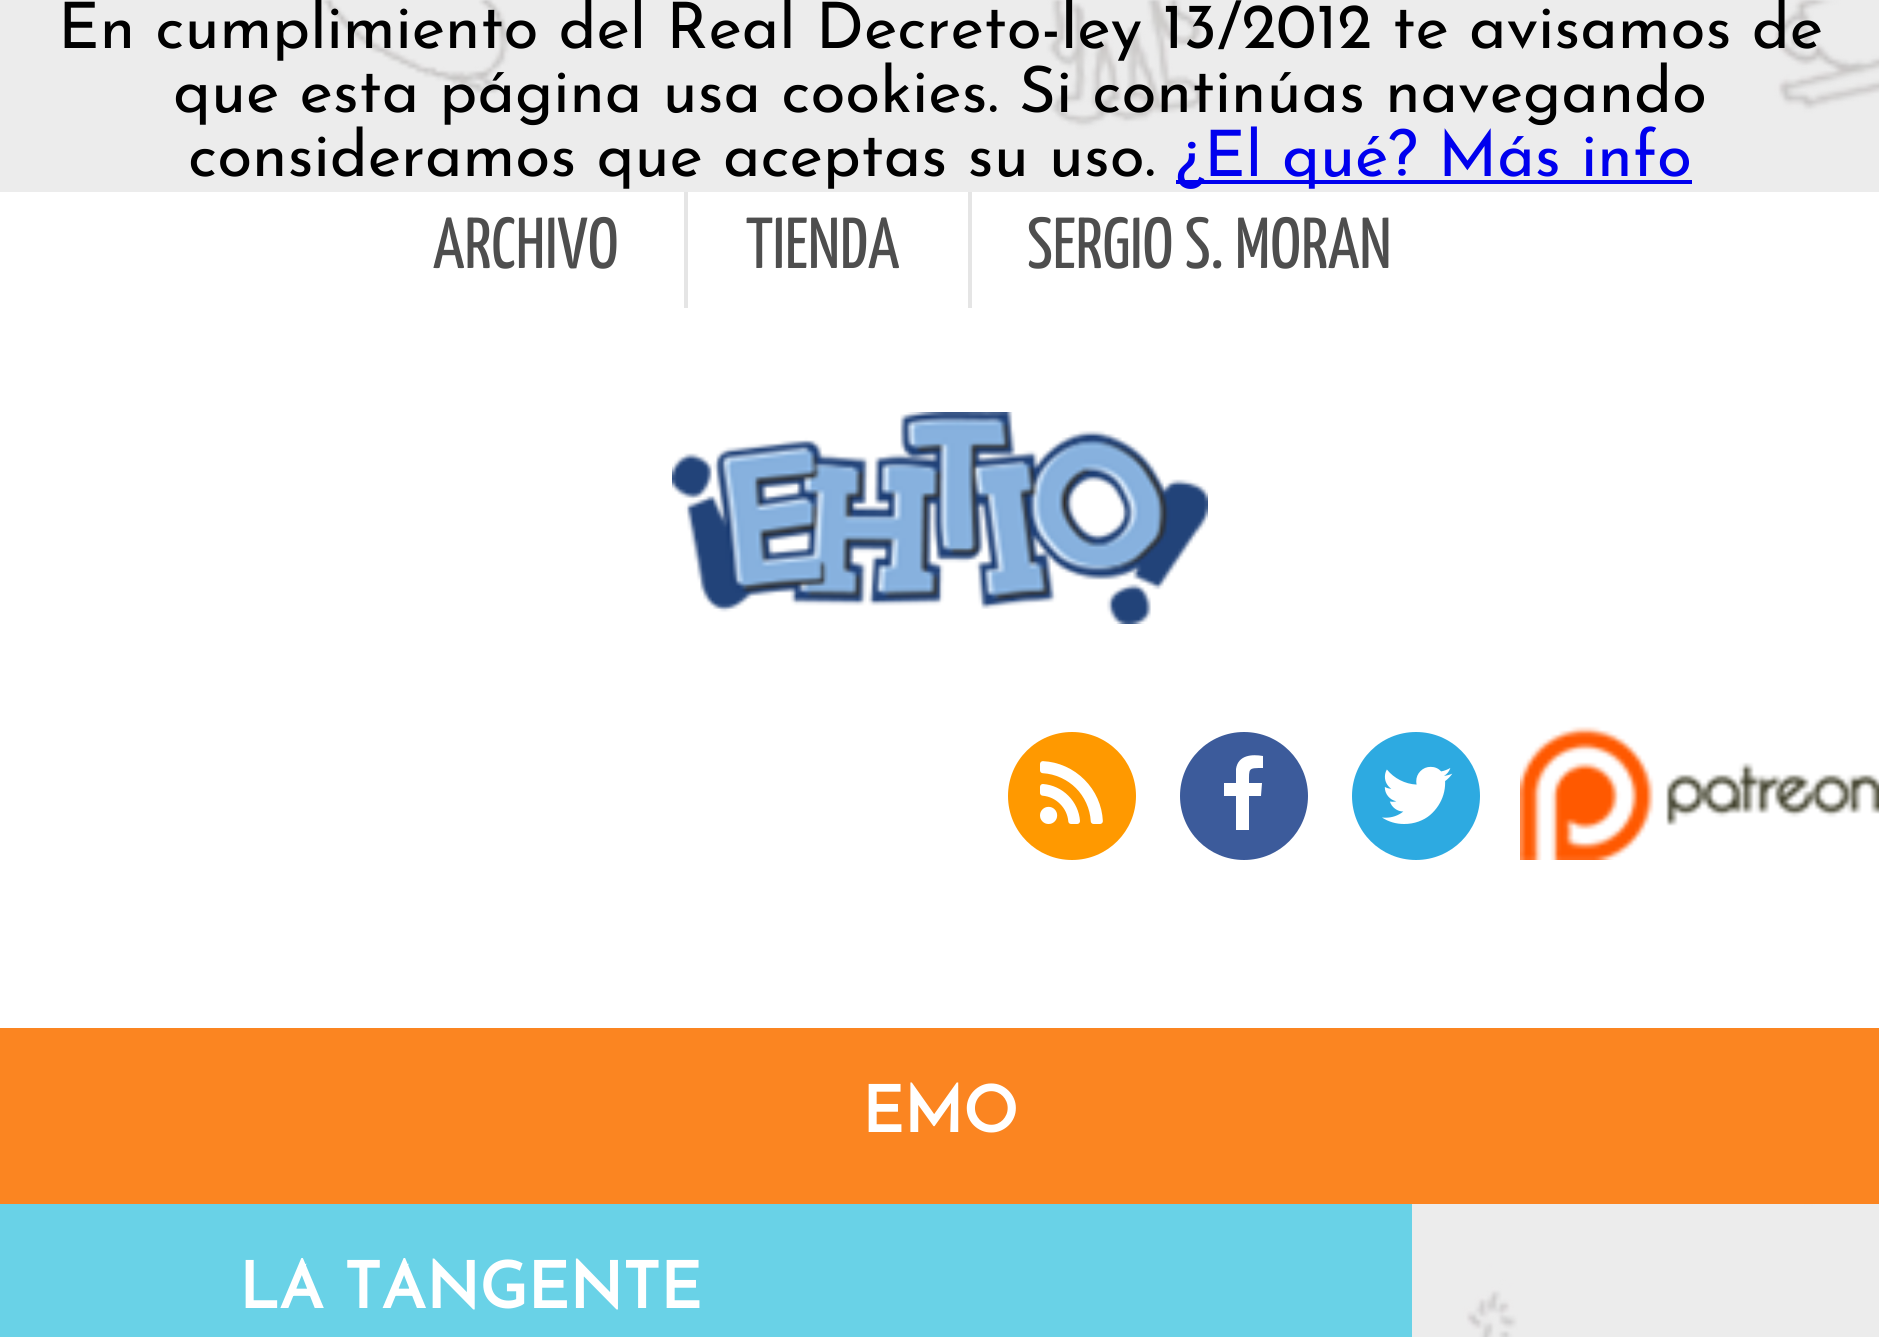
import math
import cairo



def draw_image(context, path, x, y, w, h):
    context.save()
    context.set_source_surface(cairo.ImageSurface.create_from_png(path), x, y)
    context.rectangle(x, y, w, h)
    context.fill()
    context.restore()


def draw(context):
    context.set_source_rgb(236 / 255, 236 / 255, 236 / 255)
    context.paint()
    draw_image(context, "images/1.png", 322, 0, 1557, 1337)
    context.set_source_rgb(0, 0, 238 / 255)
    context.rectangle(1176, 180, 516, 4)
    context.fill()
    context.set_source_rgb(1, 1, 1)
    context.rectangle(0, 192, 1879, 836)
    context.fill()
    context.set_source_rgb(229 / 255, 229 / 255, 229 / 255)
    context.rectangle(684, 192, 4, 116)
    context.fill()
    context.rectangle(968, 192, 4, 116)
    context.fill()
    draw_image(context, "images/2.png", 672, 412, 536, 212)
    context.set_source_rgb(1, 153 / 255, 0)
    context.arc(1072, 796, 64, 0, 2 * math.pi)
    context.fill()
    draw_image(context, "images/3.png", 1040, 761, 63, 63)
    context.set_source_rgb(60 / 255, 91 / 255, 155 / 255)
    context.arc(1244, 796, 64, 0, 2 * math.pi)
    context.fill()
    context.set_source_rgb(1, 1, 1)
    context.new_path()
    context.move_to(1263, 756)
    context.line_to(1263, 768)
    context.curve_to(1248, 768, 1249, 768, 1249, 783)
    context.line_to(1262, 783)
    context.line_to(1261, 796)
    context.line_to(1249, 796)
    context.line_to(1249, 830)
    context.line_to(1236, 830)
    context.line_to(1236, 796)
    context.line_to(1224, 796)
    context.line_to(1224, 783)
    context.line_to(1236, 783)
    context.line_to(1236, 769)
    context.curve_to(1238, 755, 1252, 754, 1263, 756)
    context.close_path()
    context.fill()
    context.set_source_rgb(45 / 255, 170 / 255, 225 / 255)
    context.arc(1416, 796, 64, 0, 2 * math.pi)
    context.fill()
    draw_image(context, "images/4.png", 1382, 766, 71, 58)
    draw_image(context, "images/5.png", 1520, 726, 359, 134)
    context.set_source_rgb(251 / 255, 133 / 255, 33 / 255)
    context.rectangle(0, 1028, 1879, 176)
    context.fill()
    context.set_source_rgb(105 / 255, 210 / 255, 231 / 255)
    context.rectangle(0, 1204, 1412, 133)
    context.fill()
    context.select_font_face("Josefin Sans Thin")
    context.set_font_size(64)
    context.set_source_rgb(0, 0, 0)
    context.move_to(58, 48)
    context.show_text("En cumplimiento del Real Decreto-ley 13/2012 te avisamos de")
    context.move_to(173, 112)
    context.show_text("que esta página usa cookies. Si continúas navegando")
    context.move_to(188, 176)
    context.show_text("consideramos que aceptas su uso.")
    context.set_source_rgb(0, 0, 238 / 255)
    context.move_to(1176, 176)
    context.show_text("¿El qué? Más info")
    context.select_font_face("Yanone Kaffeesatz ExtraLight")
    context.set_font_size(72)
    context.set_source_rgb(78 / 255, 78 / 255, 78 / 255)
    context.move_to(433, 268)
    context.show_text("ARCHIVO")
    context.move_to(746, 268)
    context.show_text("TIENDA")
    context.move_to(1027, 268)
    context.show_text("SERGIO S. MORAN")
    context.select_font_face("Josefin Sans", cairo.FontSlant.NORMAL, cairo.FontWeight.BOLD)
    context.set_font_size(64)
    context.set_source_rgb(1, 1, 1)
    context.move_to(862, 1132)
    context.show_text("EMO")
    context.move_to(239, 1308)
    context.show_text("LA TANGENTE")


surface = cairo.ImageSurface(cairo.Format.RGB24, 1879, 1337)
context = cairo.Context(surface)
options = cairo.FontOptions()
options.set_hint_metrics(cairo.HintMetrics.OFF)
options.set_hint_style(cairo.HintStyle.NONE)
context.set_font_options(options)
context.set_miter_limit(4)
draw(context)
surface.write_to_png("out.png")
